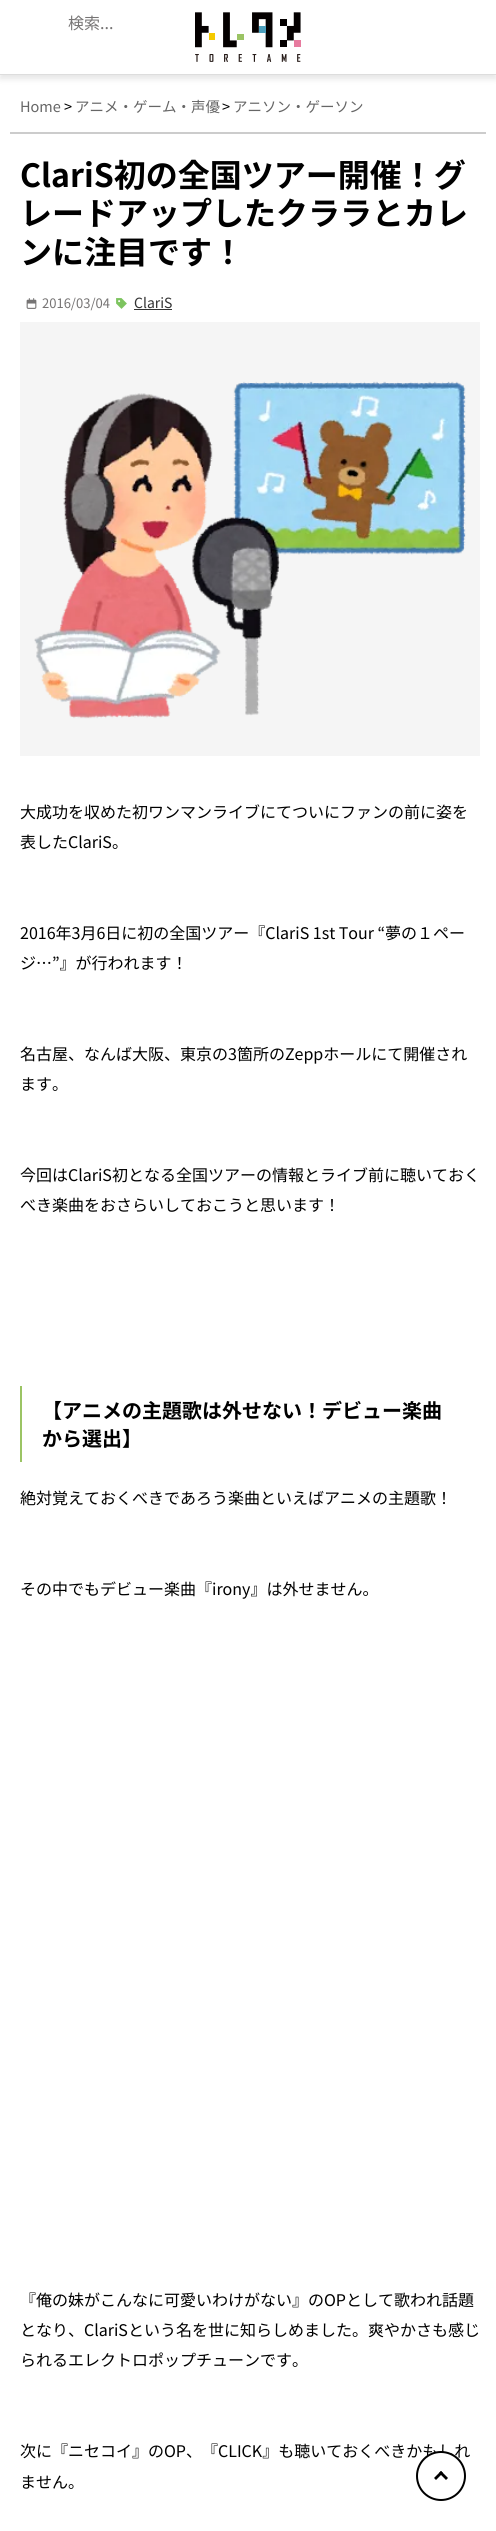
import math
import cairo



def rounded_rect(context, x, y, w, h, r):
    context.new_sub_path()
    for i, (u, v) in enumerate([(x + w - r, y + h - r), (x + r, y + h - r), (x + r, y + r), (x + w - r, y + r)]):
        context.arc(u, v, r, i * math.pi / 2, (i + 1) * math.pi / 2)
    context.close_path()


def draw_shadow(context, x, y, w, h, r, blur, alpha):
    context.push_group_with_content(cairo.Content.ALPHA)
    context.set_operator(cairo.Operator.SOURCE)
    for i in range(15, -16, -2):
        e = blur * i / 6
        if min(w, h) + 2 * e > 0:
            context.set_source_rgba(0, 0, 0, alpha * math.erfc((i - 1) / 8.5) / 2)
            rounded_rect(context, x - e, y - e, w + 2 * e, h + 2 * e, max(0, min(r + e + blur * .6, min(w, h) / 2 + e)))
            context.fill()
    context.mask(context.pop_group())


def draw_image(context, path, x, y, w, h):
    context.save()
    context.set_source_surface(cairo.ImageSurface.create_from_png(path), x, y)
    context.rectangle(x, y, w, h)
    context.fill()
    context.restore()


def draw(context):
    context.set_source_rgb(1, 1, 1)
    context.paint()
    context.set_source_rgb(0, 0, 0)
    draw_shadow(context, 0, 4, 496, 75, 0, 3, 0.1)
    context.set_source_rgb(1, 1, 1)
    context.rectangle(0, 0, 496, 74)
    context.fill()
    context.set_source_rgb(221 / 255, 221 / 255, 221 / 255)
    context.rectangle(0, 74, 496, 1)
    context.fill()
    draw_image(context, "images/1.png", 195, 12, 106, 50)
    context.set_source_rgb(204 / 255, 204 / 255, 204 / 255)
    context.rectangle(10, 132, 476, 2)
    context.fill()
    draw_image(context, "images/2.png", 26, 298, 11, 11)
    draw_image(context, "images/3.png", 116, 298, 11, 11)
    context.set_source_rgb(51 / 255, 51 / 255, 51 / 255)
    context.rectangle(134, 309, 38, 1)
    context.fill()
    context.set_source_rgb(245 / 255, 245 / 255, 245 / 255)
    context.rectangle(20, 322, 460, 434)
    context.fill()
    draw_image(context, "images/4.png", 34, 381, 432, 338)
    context.set_source_rgb(155 / 255, 196 / 255, 100 / 255)
    context.rectangle(20, 1386, 2, 76)
    context.fill()
    context.select_font_face("Noto Sans JP")
    context.set_font_size(16)
    context.set_source_rgb(118 / 255, 116 / 255, 116 / 255)
    context.move_to(68, 29)
    context.show_text("検索...")
    context.set_font_size(14.5)
    context.set_source_rgb(102 / 255, 102 / 255, 102 / 255)
    context.move_to(20, 112)
    context.show_text("Home")
    context.set_source_rgb(0, 0, 0)
    context.move_to(64, 112)
    context.show_text(">")
    context.set_source_rgb(102 / 255, 102 / 255, 102 / 255)
    context.move_to(75, 112)
    context.show_text("アニメ・ゲーム・声優")
    context.set_source_rgb(0, 0, 0)
    context.move_to(222, 112)
    context.show_text(">")
    context.set_source_rgb(102 / 255, 102 / 255, 102 / 255)
    context.move_to(233, 112)
    context.show_text("アニソン・ゲーソン")
    context.select_font_face("Noto Sans JP", cairo.FontSlant.NORMAL, cairo.FontWeight.BOLD)
    context.set_font_size(32)
    context.set_source_rgb(0, 0, 0)
    context.move_to(20, 187)
    context.show_text("ClariS初の全国ツアー開催！グ")
    context.move_to(20, 225)
    context.show_text("レードアップしたクララとカレ")
    context.move_to(20, 264)
    context.show_text("ンに注目です！")
    context.select_font_face("Noto Sans JP")
    context.set_font_size(13)
    context.set_source_rgb(118 / 255, 116 / 255, 116 / 255)
    context.move_to(42, 308)
    context.show_text("2016/03/04")
    context.set_font_size(14)
    context.set_source_rgb(51 / 255, 51 / 255, 51 / 255)
    context.move_to(134, 308)
    context.show_text("ClariS")
    context.set_font_size(16)
    context.set_source_rgb(0, 0, 0)
    context.move_to(20, 818)
    context.show_text("大成功を収めた初ワンマンライブにてついにファンの前に姿を")
    context.move_to(20, 848)
    context.show_text("表したClariS。")
    context.move_to(20, 939)
    context.show_text("2016年3月6日に初の全国ツアー『ClariS 1st Tour “夢の１ペー")
    context.move_to(20, 969)
    context.show_text("ジ…”』が行われます！")
    context.move_to(20, 1060)
    context.show_text("名古屋、なんば大阪、東京の3箇所のZeppホールにて開催され")
    context.move_to(20, 1090)
    context.show_text("ます。")
    context.move_to(20, 1181)
    context.show_text("今回はClariS初となる全国ツアーの情報とライブ前に聴いておく")
    context.move_to(20, 1211)
    context.show_text("べき楽曲をおさらいしておこうと思います！")
    context.select_font_face("Noto Sans JP", cairo.FontSlant.NORMAL, cairo.FontWeight.BOLD)
    context.set_font_size(20)
    context.move_to(42, 1418)
    context.show_text("【アニメの主題歌は外せない！デビュー楽曲")
    context.move_to(42, 1446)
    context.show_text("から選出】")
    context.select_font_face("Noto Sans JP")
    context.set_font_size(16)
    context.move_to(20, 1504)
    context.show_text("絶対覚えておくべきであろう楽曲といえばアニメの主題歌！")
    context.move_to(20, 1595)
    context.show_text("その中でもデビュー楽曲『irony』は外せません。")
    context.move_to(20, 2306)
    context.show_text("『俺の妹がこんなに可愛いわけがない』のOPとして歌われ話題")
    context.move_to(20, 2336)
    context.show_text("となり、ClariSという名を世に知らしめました。爽やかさも感じ")
    context.move_to(20, 2366)
    context.show_text("られるエレクトロポップチューンです。")
    context.move_to(20, 2457)
    context.show_text("次に『ニセコイ』のOP、『CLICK』も聴いておくべきかもしれ")
    context.move_to(20, 2488)
    context.show_text("ません。")
    context.set_source_rgb(1, 1, 1)
    context.new_path()
    context.arc(441, 2476, 24, 0, 2 * math.pi)
    context.fill_preserve()
    context.set_source_rgb(0, 0, 0)
    context.stroke()
    context.new_path()
    context.move_to(434, 2478)
    context.line_to(441, 2471)
    context.line_to(443, 2473)
    context.line_to(436, 2480)
    context.close_path()
    context.fill()
    context.new_path()
    context.move_to(439, 2473)
    context.line_to(441, 2471)
    context.line_to(448, 2478)
    context.line_to(446, 2480)
    context.close_path()
    context.fill()


surface = cairo.ImageSurface(cairo.Format.RGB24, 496, 2531)
context = cairo.Context(surface)
options = cairo.FontOptions()
options.set_hint_metrics(cairo.HintMetrics.OFF)
options.set_hint_style(cairo.HintStyle.NONE)
context.set_font_options(options)
context.set_miter_limit(4)
draw(context)
surface.write_to_png("out.png")
